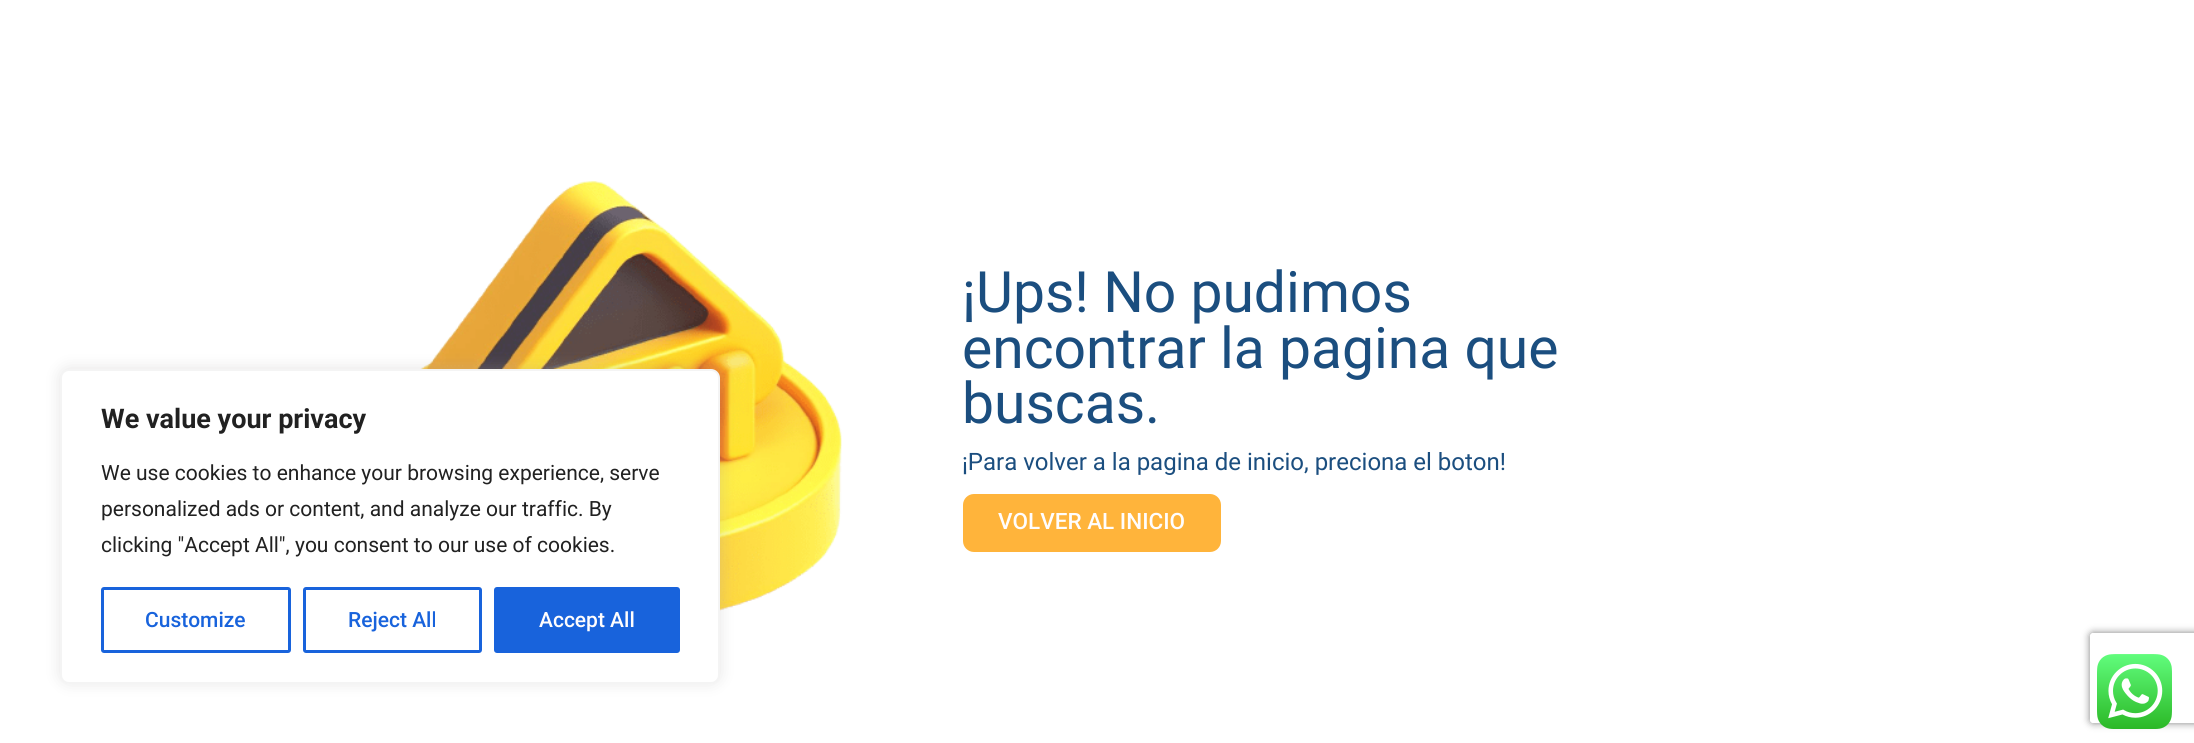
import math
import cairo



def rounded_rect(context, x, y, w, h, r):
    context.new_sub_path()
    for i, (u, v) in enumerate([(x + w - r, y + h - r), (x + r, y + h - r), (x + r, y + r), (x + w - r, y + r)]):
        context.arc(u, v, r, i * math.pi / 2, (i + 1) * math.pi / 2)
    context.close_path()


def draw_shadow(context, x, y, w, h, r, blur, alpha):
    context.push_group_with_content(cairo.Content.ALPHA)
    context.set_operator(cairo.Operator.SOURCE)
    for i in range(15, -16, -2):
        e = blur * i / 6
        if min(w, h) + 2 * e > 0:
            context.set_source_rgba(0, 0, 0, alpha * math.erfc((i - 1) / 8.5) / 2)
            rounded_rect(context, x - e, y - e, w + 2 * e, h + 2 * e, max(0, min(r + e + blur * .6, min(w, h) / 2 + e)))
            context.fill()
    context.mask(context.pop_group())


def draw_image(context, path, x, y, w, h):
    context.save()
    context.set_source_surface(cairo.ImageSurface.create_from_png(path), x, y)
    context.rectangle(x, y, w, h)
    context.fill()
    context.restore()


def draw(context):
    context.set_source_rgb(1, 1, 1)
    context.paint()
    draw_image(context, "images/1.png", 420, 181, 422, 430)
    context.set_source_rgb(172 / 255, 171 / 255, 171 / 255)
    draw_shadow(context, 60, 368, 660, 315, 9, 7.5, 0.3)
    context.set_source_rgb(1, 1, 1)
    rounded_rect(context, 61, 370, 658, 313, 8)
    context.fill_preserve()
    context.set_source_rgb(244 / 255, 244 / 255, 244 / 255)
    context.stroke()
    rounded_rect(context, 102.5, 588.5, 187, 63, 1.5)
    context.set_source_rgb(24 / 255, 99 / 255, 220 / 255)
    context.set_line_width(3)
    context.stroke()
    rounded_rect(context, 304.5, 588.5, 176, 63, 1.5)
    context.stroke()
    rounded_rect(context, 495.5, 588.5, 183, 63, 1.5)
    context.fill_preserve()
    context.stroke()
    context.set_source_rgb(1, 180 / 255, 59 / 255)
    rounded_rect(context, 963, 494, 258, 58, 11)
    context.fill()
    context.save()
    context.set_fill_rule(cairo.FillRule.EVEN_ODD)
    context.new_path()
    context.move_to(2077, 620)
    context.line_to(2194, 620)
    context.line_to(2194, 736)
    context.line_to(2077, 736)
    context.close_path()
    context.move_to(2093, 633)
    context.line_to(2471, 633)
    context.curve_to(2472.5, 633, 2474, 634.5, 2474, 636)
    context.line_to(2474, 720)
    context.curve_to(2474, 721.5, 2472.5, 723, 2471, 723)
    context.line_to(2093, 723)
    context.curve_to(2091.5, 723, 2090, 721.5, 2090, 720)
    context.line_to(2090, 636)
    context.curve_to(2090, 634.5, 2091.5, 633, 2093, 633)
    context.close_path()
    context.clip()
    context.set_source_rgb(128 / 255, 128 / 255, 128 / 255)
    draw_shadow(context, 2090, 633, 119, 90, 3, 4, 1)
    context.restore()
    draw_image(context, "images/2.png", 2097, 654, 75, 75)
    context.select_font_face("Roboto", cairo.FontSlant.NORMAL, cairo.FontWeight.BOLD)
    context.set_font_size(27)
    context.set_source_rgb(33 / 255, 33 / 255, 33 / 255)
    context.move_to(101, 428)
    context.show_text("We value your privacy")
    context.select_font_face("Roboto")
    context.set_font_size(21)
    context.move_to(101, 480)
    context.show_text("We use cookies to enhance your browsing experience, serve")
    context.move_to(101, 516)
    context.show_text("personalized ads or content, and analyze our traffic. By")
    context.move_to(101, 552)
    context.show_text("clicking \"Accept All\", you consent to our use of cookies.")
    context.select_font_face("Roboto Medium")
    context.set_source_rgb(24 / 255, 99 / 255, 220 / 255)
    context.move_to(145, 627)
    context.show_text("Customize")
    context.move_to(348, 627)
    context.show_text("Reject All")
    context.set_source_rgb(1, 253 / 255, 253 / 255)
    context.move_to(539, 627)
    context.show_text("Accept All")
    context.select_font_face("Roboto")
    context.set_font_size(57)
    context.set_source_rgb(27 / 255, 78 / 255, 127 / 255)
    context.move_to(962, 312)
    context.show_text("¡Ups! No pudimos")
    context.move_to(962, 368)
    context.show_text("encontrar la pagina que")
    context.move_to(962, 423)
    context.show_text("buscas.")
    context.set_font_size(24)
    context.move_to(962, 470)
    context.show_text("¡Para volver a la pagina de inicio, preciona el boton!")
    context.select_font_face("Roboto Medium")
    context.set_font_size(22.5)
    context.set_source_rgb(1, 253 / 255, 253 / 255)
    context.move_to(998, 529)
    context.show_text("VOLVER AL INICIO")


surface = cairo.ImageSurface(cairo.Format.RGB24, 2194, 743)
context = cairo.Context(surface)
options = cairo.FontOptions()
options.set_hint_metrics(cairo.HintMetrics.OFF)
options.set_hint_style(cairo.HintStyle.NONE)
context.set_font_options(options)
context.set_miter_limit(4)
draw(context)
surface.write_to_png("out.png")
